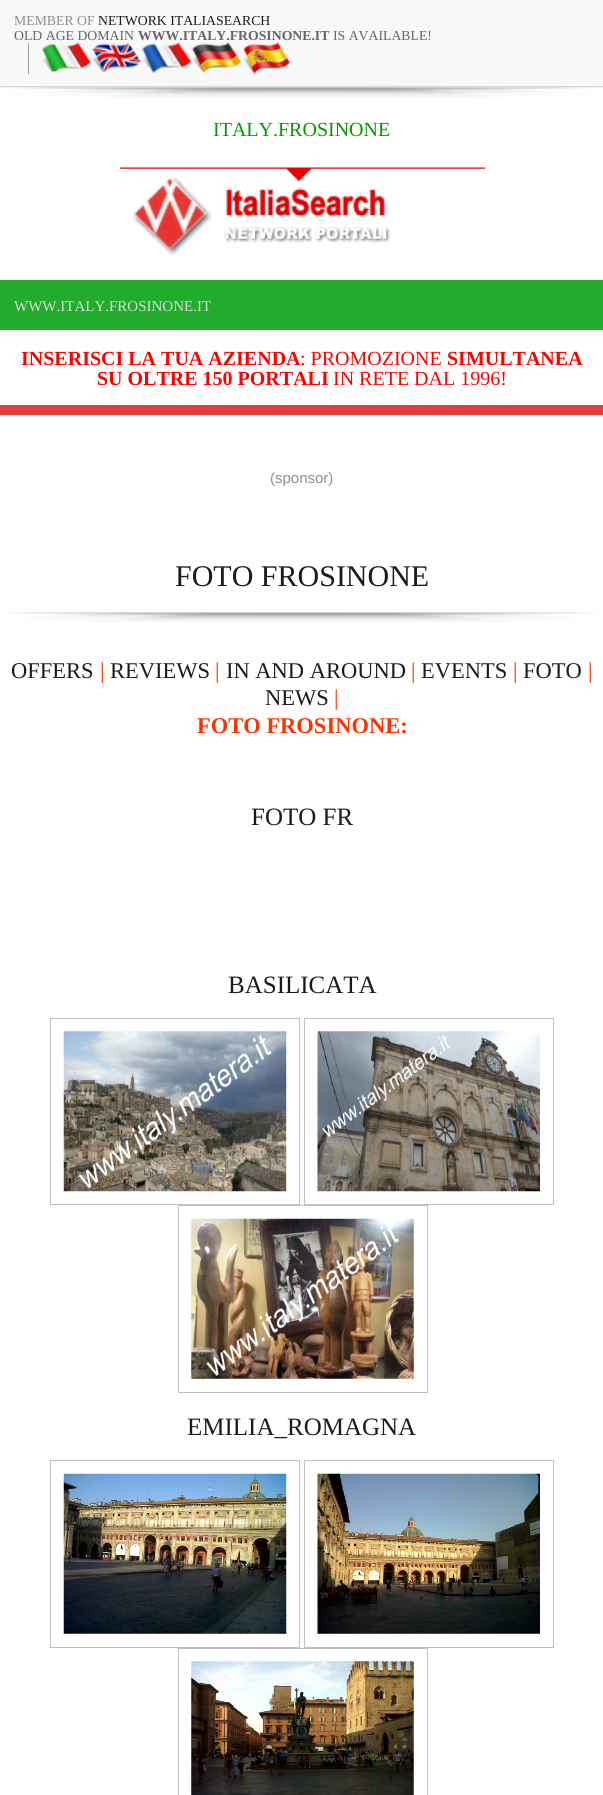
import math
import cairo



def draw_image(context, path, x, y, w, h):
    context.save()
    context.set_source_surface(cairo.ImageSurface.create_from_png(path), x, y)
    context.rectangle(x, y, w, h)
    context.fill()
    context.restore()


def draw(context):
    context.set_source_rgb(1, 1, 1)
    context.paint()
    context.set_source_rgb(248 / 255, 248 / 255, 248 / 255)
    context.rectangle(0, 0, 603, 88)
    context.fill()
    context.set_source_rgb(216 / 255, 216 / 255, 216 / 255)
    context.rectangle(0, 86, 603, 1)
    context.fill()
    context.set_source_rgb(163 / 255, 163 / 255, 163 / 255)
    context.rectangle(28, 43, 1, 31)
    context.fill()
    draw_image(context, "images/1.png", 42, 42, 50, 30)
    draw_image(context, "images/2.png", 92, 42, 50, 31)
    draw_image(context, "images/3.png", 142, 42, 50, 31)
    draw_image(context, "images/4.png", 192, 42, 50, 31)
    draw_image(context, "images/5.png", 243, 42, 48, 32)
    draw_image(context, "images/6.png", 4, 87, 594, 10)
    draw_image(context, "images/7.png", 120, 167, 365, 88)
    context.set_source_rgb(33 / 255, 172 / 255, 45 / 255)
    context.rectangle(0, 280, 603, 50)
    context.fill()
    context.set_source_rgb(224 / 255, 61 / 255, 61 / 255)
    context.rectangle(0, 405, 603, 10)
    context.fill()
    draw_image(context, "images/8.png", 4, 612, 594, 10)
    context.rectangle(50.5, 1018.5, 249, 186)
    context.set_source_rgb(192 / 255, 192 / 255, 192 / 255)
    context.set_line_width(1)
    context.stroke()
    context.rectangle(304.5, 1018.5, 249, 186)
    context.stroke()
    draw_image(context, "images/9.png", 63, 1031, 224, 161)
    draw_image(context, "images/10.png", 317, 1031, 223, 161)
    context.rectangle(178.5, 1205.5, 249, 187)
    context.stroke()
    draw_image(context, "images/11.png", 191, 1218, 223, 161)
    context.rectangle(50.5, 1460.5, 249, 187)
    context.stroke()
    context.rectangle(304.5, 1460.5, 249, 187)
    context.stroke()
    draw_image(context, "images/12.png", 63, 1473, 224, 161)
    draw_image(context, "images/13.png", 317, 1473, 223, 161)
    context.rectangle(178.5, 1648.5, 249, 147)
    context.stroke()
    draw_image(context, "images/14.png", 191, 1661, 223, 134)
    context.select_font_face("Liberation Serif")
    context.set_font_size(13.75)
    context.set_source_rgb(143 / 255, 143 / 255, 143 / 255)
    context.move_to(14, 25)
    context.show_text("MEMBER OF")
    context.set_source_rgb(27 / 255, 27 / 255, 27 / 255)
    context.move_to(98, 25)
    context.show_text("NETWORK ITALIASEARCH")
    context.set_source_rgb(102 / 255, 102 / 255, 102 / 255)
    context.move_to(14, 40)
    context.show_text("OLD AGE DOMAIN")
    context.select_font_face("Liberation Serif", cairo.FontSlant.NORMAL, cairo.FontWeight.BOLD)
    context.move_to(138, 40)
    context.show_text("WWW.ITALY.FROSINONE.IT")
    context.select_font_face("Liberation Serif")
    context.move_to(333, 40)
    context.show_text("IS AVAILABLE!")
    context.set_font_size(20)
    context.set_source_rgb(0, 153 / 255, 0)
    context.move_to(213, 136)
    context.show_text("ITALY.FROSINONE")
    context.set_font_size(15)
    context.set_source_rgb(218 / 255, 218 / 255, 218 / 255)
    context.move_to(14, 311)
    context.show_text("WWW.ITALY.FROSINONE.IT")
    context.select_font_face("Liberation Serif", cairo.FontSlant.NORMAL, cairo.FontWeight.BOLD)
    context.set_font_size(20)
    context.set_source_rgb(1, 0, 0)
    context.move_to(21, 365)
    context.show_text("INSERISCI LA TUA AZIENDA")
    context.select_font_face("Liberation Serif")
    context.move_to(300, 365)
    context.show_text(": PROMOZIONE")
    context.select_font_face("Liberation Serif", cairo.FontSlant.NORMAL, cairo.FontWeight.BOLD)
    context.move_to(447, 365)
    context.show_text("SIMULTANEA")
    context.move_to(97, 385)
    context.show_text("SU OLTRE 150 PORTALI")
    context.select_font_face("Liberation Serif")
    context.move_to(333, 385)
    context.show_text("IN RETE DAL 1996!")
    context.select_font_face("Liberation Sans")
    context.set_font_size(15)
    context.set_source_rgb(143 / 255, 143 / 255, 143 / 255)
    context.move_to(270, 483)
    context.show_text("(sponsor)")
    context.select_font_face("Liberation Serif")
    context.set_font_size(30)
    context.set_source_rgb(27 / 255, 27 / 255, 27 / 255)
    context.move_to(175, 586)
    context.show_text("FOTO FROSINONE")
    context.set_font_size(22.5)
    context.move_to(11, 678)
    context.show_text("OFFERS")
    context.set_source_rgb(1, 51 / 255, 0)
    context.move_to(100, 678)
    context.show_text("|")
    context.set_source_rgb(27 / 255, 27 / 255, 27 / 255)
    context.move_to(110, 678)
    context.show_text("REVIEWS")
    context.set_source_rgb(1, 51 / 255, 0)
    context.move_to(215, 678)
    context.show_text("|")
    context.set_source_rgb(27 / 255, 27 / 255, 27 / 255)
    context.move_to(226, 678)
    context.show_text("IN AND AROUND")
    context.set_source_rgb(1, 51 / 255, 0)
    context.move_to(411, 678)
    context.show_text("|")
    context.set_source_rgb(27 / 255, 27 / 255, 27 / 255)
    context.move_to(421, 678)
    context.show_text("EVENTS")
    context.set_source_rgb(1, 51 / 255, 0)
    context.move_to(513, 678)
    context.show_text("|")
    context.set_source_rgb(27 / 255, 27 / 255, 27 / 255)
    context.move_to(523, 678)
    context.show_text("FOTO")
    context.set_source_rgb(1, 51 / 255, 0)
    context.move_to(588, 678)
    context.show_text("|")
    context.set_source_rgb(27 / 255, 27 / 255, 27 / 255)
    context.move_to(265, 705)
    context.show_text("NEWS")
    context.set_source_rgb(1, 51 / 255, 0)
    context.move_to(334, 705)
    context.show_text("|")
    context.select_font_face("Liberation Serif", cairo.FontSlant.NORMAL, cairo.FontWeight.BOLD)
    context.move_to(197, 733)
    context.show_text("FOTO FROSINONE:")
    context.select_font_face("Liberation Serif")
    context.set_font_size(25)
    context.set_source_rgb(27 / 255, 27 / 255, 27 / 255)
    context.move_to(251, 825)
    context.show_text("FOTO FR")
    context.move_to(228, 993)
    context.show_text("BASILICATA")
    context.move_to(187, 1435)
    context.show_text("EMILIA_ROMAGNA")


surface = cairo.ImageSurface(cairo.Format.RGB24, 603, 1795)
context = cairo.Context(surface)
options = cairo.FontOptions()
options.set_hint_metrics(cairo.HintMetrics.OFF)
options.set_hint_style(cairo.HintStyle.NONE)
context.set_font_options(options)
context.set_miter_limit(4)
draw(context)
surface.write_to_png("out.png")
